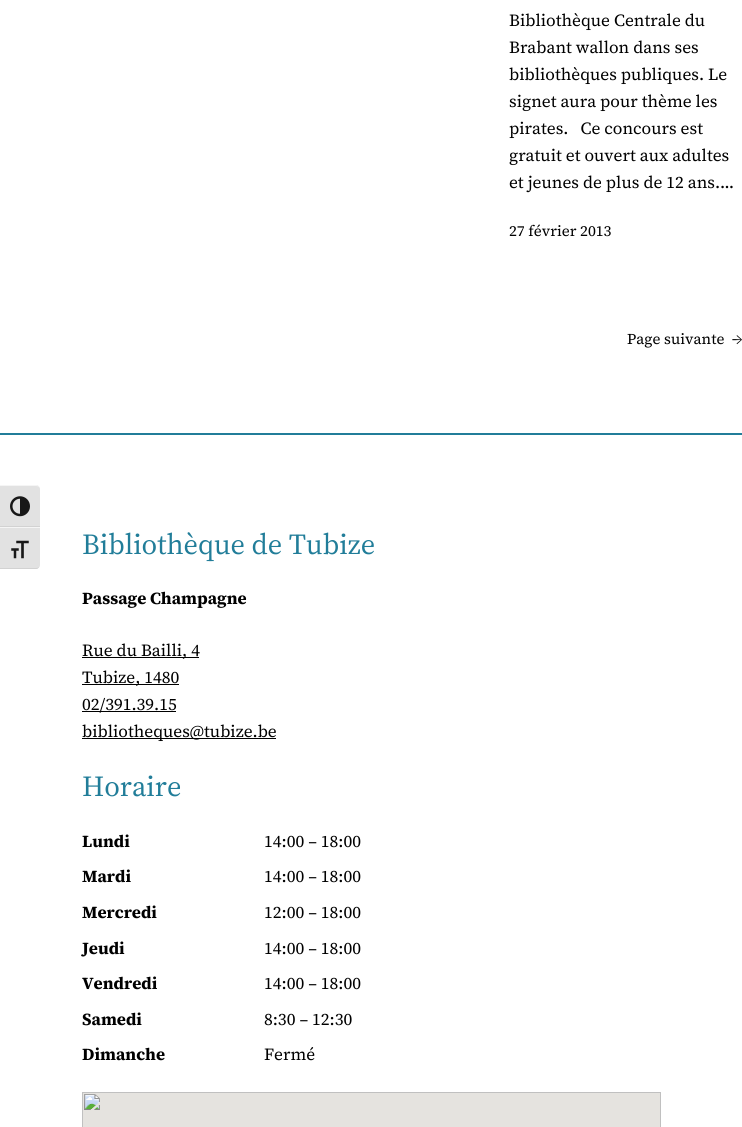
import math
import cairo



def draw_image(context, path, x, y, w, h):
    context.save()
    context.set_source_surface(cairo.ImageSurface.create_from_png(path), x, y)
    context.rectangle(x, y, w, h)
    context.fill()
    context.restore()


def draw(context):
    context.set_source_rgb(1, 1, 1)
    context.paint()
    context.set_source_rgb(226 / 255, 226 / 255, 226 / 255)
    context.new_path()
    context.move_to(0, 485)
    context.line_to(36, 485)
    context.curve_to(38, 485, 40, 487, 40, 489)
    context.line_to(40, 527)
    context.line_to(0, 527)
    context.close_path()
    context.fill()
    context.set_source_rgb(245 / 255, 245 / 255, 245 / 255)
    context.new_path()
    context.move_to(0, 485)
    context.line_to(0, 486)
    context.line_to(36, 486)
    context.curve_to(38, 486, 40, 487, 40, 489)
    context.curve_to(40, 487, 38, 485, 36, 485)
    context.close_path()
    context.fill()
    context.set_source_rgb(210 / 255, 210 / 255, 210 / 255)
    context.rectangle(0, 526, 40, 1)
    context.fill()
    draw_image(context, "images/1.png", 10, 496, 20, 21)
    context.set_source_rgb(226 / 255, 226 / 255, 226 / 255)
    context.new_path()
    context.move_to(0, 527)
    context.line_to(40, 527)
    context.line_to(40, 565)
    context.curve_to(40, 567, 38, 569, 36, 569)
    context.line_to(0, 569)
    context.close_path()
    context.fill()
    context.set_source_rgb(245 / 255, 245 / 255, 245 / 255)
    context.rectangle(0, 527, 40, 1)
    context.fill()
    context.set_source_rgb(210 / 255, 210 / 255, 210 / 255)
    context.new_path()
    context.move_to(0, 568)
    context.line_to(0, 569)
    context.line_to(36, 569)
    context.curve_to(38, 569, 40, 567, 40, 565)
    context.curve_to(40, 567, 38, 568, 36, 568)
    context.close_path()
    context.fill()
    draw_image(context, "images/2.png", 11, 540, 18, 19)
    context.set_source_rgb(33 / 255, 125 / 255, 153 / 255)
    context.rectangle(0, 433, 742, 2)
    context.fill()
    context.set_source_rgb(0, 0, 0)
    context.rectangle(82, 657, 117, 1)
    context.fill()
    context.rectangle(82, 684, 97, 1)
    context.fill()
    context.rectangle(82, 711, 94, 1)
    context.fill()
    context.rectangle(82, 738, 194, 1)
    context.fill()
    draw_image(context, "images/3.png", 82, 1092, 579, 35)
    context.select_font_face("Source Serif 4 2")
    context.set_font_size(17)
    context.move_to(509, 26)
    context.show_text("Bibliothèque Centrale du")
    context.move_to(509, 53)
    context.show_text("Brabant wallon dans ses")
    context.move_to(509, 80)
    context.show_text("bibliothèques publiques. Le")
    context.move_to(509, 107)
    context.show_text("signet aura pour thème les")
    context.move_to(509, 134)
    context.show_text("pirates.   Ce concours est")
    context.move_to(509, 161)
    context.show_text("gratuit et ouvert aux adultes")
    context.move_to(509, 188)
    context.show_text("et jeunes de plus de 12 ans.…")
    context.select_font_face("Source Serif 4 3")
    context.set_font_size(15)
    context.move_to(509, 236)
    context.show_text("27 février 2013")
    context.move_to(627, 344)
    context.show_text("Page suivante")
    context.move_to(732, 344)
    context.show_text("→")
    context.select_font_face("Source Serif 4")
    context.set_font_size(29)
    context.set_source_rgb(33 / 255, 125 / 255, 153 / 255)
    context.move_to(82, 554)
    context.show_text("Bibliothèque de Tubize")
    context.select_font_face("Source Serif 4", cairo.FontSlant.NORMAL, cairo.FontWeight.BOLD)
    context.set_font_size(17)
    context.set_source_rgb(0, 0, 0)
    context.move_to(82, 604)
    context.show_text("Passage Champagne")
    context.select_font_face("Source Serif 4 2")
    context.move_to(82, 656)
    context.show_text("Rue du Bailli, 4")
    context.move_to(82, 683)
    context.show_text("Tubize, 1480")
    context.move_to(82, 710)
    context.show_text("02/391.39.15")
    context.move_to(82, 737)
    context.show_text("bibliotheques@tubize.be")
    context.select_font_face("Source Serif 4")
    context.set_font_size(29)
    context.set_source_rgb(33 / 255, 125 / 255, 153 / 255)
    context.move_to(82, 796)
    context.show_text("Horaire")
    context.select_font_face("Source Serif 4", cairo.FontSlant.NORMAL, cairo.FontWeight.BOLD)
    context.set_font_size(17)
    context.set_source_rgb(0, 0, 0)
    context.move_to(82, 847)
    context.show_text("Lundi")
    context.select_font_face("Source Serif 4 2")
    context.move_to(264, 847)
    context.show_text("14:00 – 18:00")
    context.select_font_face("Source Serif 4", cairo.FontSlant.NORMAL, cairo.FontWeight.BOLD)
    context.move_to(82, 882)
    context.show_text("Mardi")
    context.select_font_face("Source Serif 4 2")
    context.move_to(264, 882)
    context.show_text("14:00 – 18:00")
    context.select_font_face("Source Serif 4", cairo.FontSlant.NORMAL, cairo.FontWeight.BOLD)
    context.move_to(82, 918)
    context.show_text("Mercredi")
    context.select_font_face("Source Serif 4 2")
    context.move_to(264, 918)
    context.show_text("12:00 – 18:00")
    context.select_font_face("Source Serif 4", cairo.FontSlant.NORMAL, cairo.FontWeight.BOLD)
    context.move_to(82, 954)
    context.show_text("Jeudi")
    context.select_font_face("Source Serif 4 2")
    context.move_to(264, 954)
    context.show_text("14:00 – 18:00")
    context.select_font_face("Source Serif 4", cairo.FontSlant.NORMAL, cairo.FontWeight.BOLD)
    context.move_to(82, 989)
    context.show_text("Vendredi")
    context.select_font_face("Source Serif 4 2")
    context.move_to(264, 989)
    context.show_text("14:00 – 18:00")
    context.select_font_face("Source Serif 4", cairo.FontSlant.NORMAL, cairo.FontWeight.BOLD)
    context.move_to(82, 1025)
    context.show_text("Samedi")
    context.select_font_face("Source Serif 4 2")
    context.move_to(264, 1025)
    context.show_text("8:30 – 12:30")
    context.select_font_face("Source Serif 4", cairo.FontSlant.NORMAL, cairo.FontWeight.BOLD)
    context.move_to(82, 1060)
    context.show_text("Dimanche")
    context.select_font_face("Source Serif 4 2")
    context.move_to(264, 1060)
    context.show_text("Fermé")


surface = cairo.ImageSurface(cairo.Format.RGB24, 742, 1127)
context = cairo.Context(surface)
options = cairo.FontOptions()
options.set_hint_metrics(cairo.HintMetrics.OFF)
options.set_hint_style(cairo.HintStyle.NONE)
context.set_font_options(options)
context.set_miter_limit(4)
draw(context)
surface.write_to_png("out.png")
